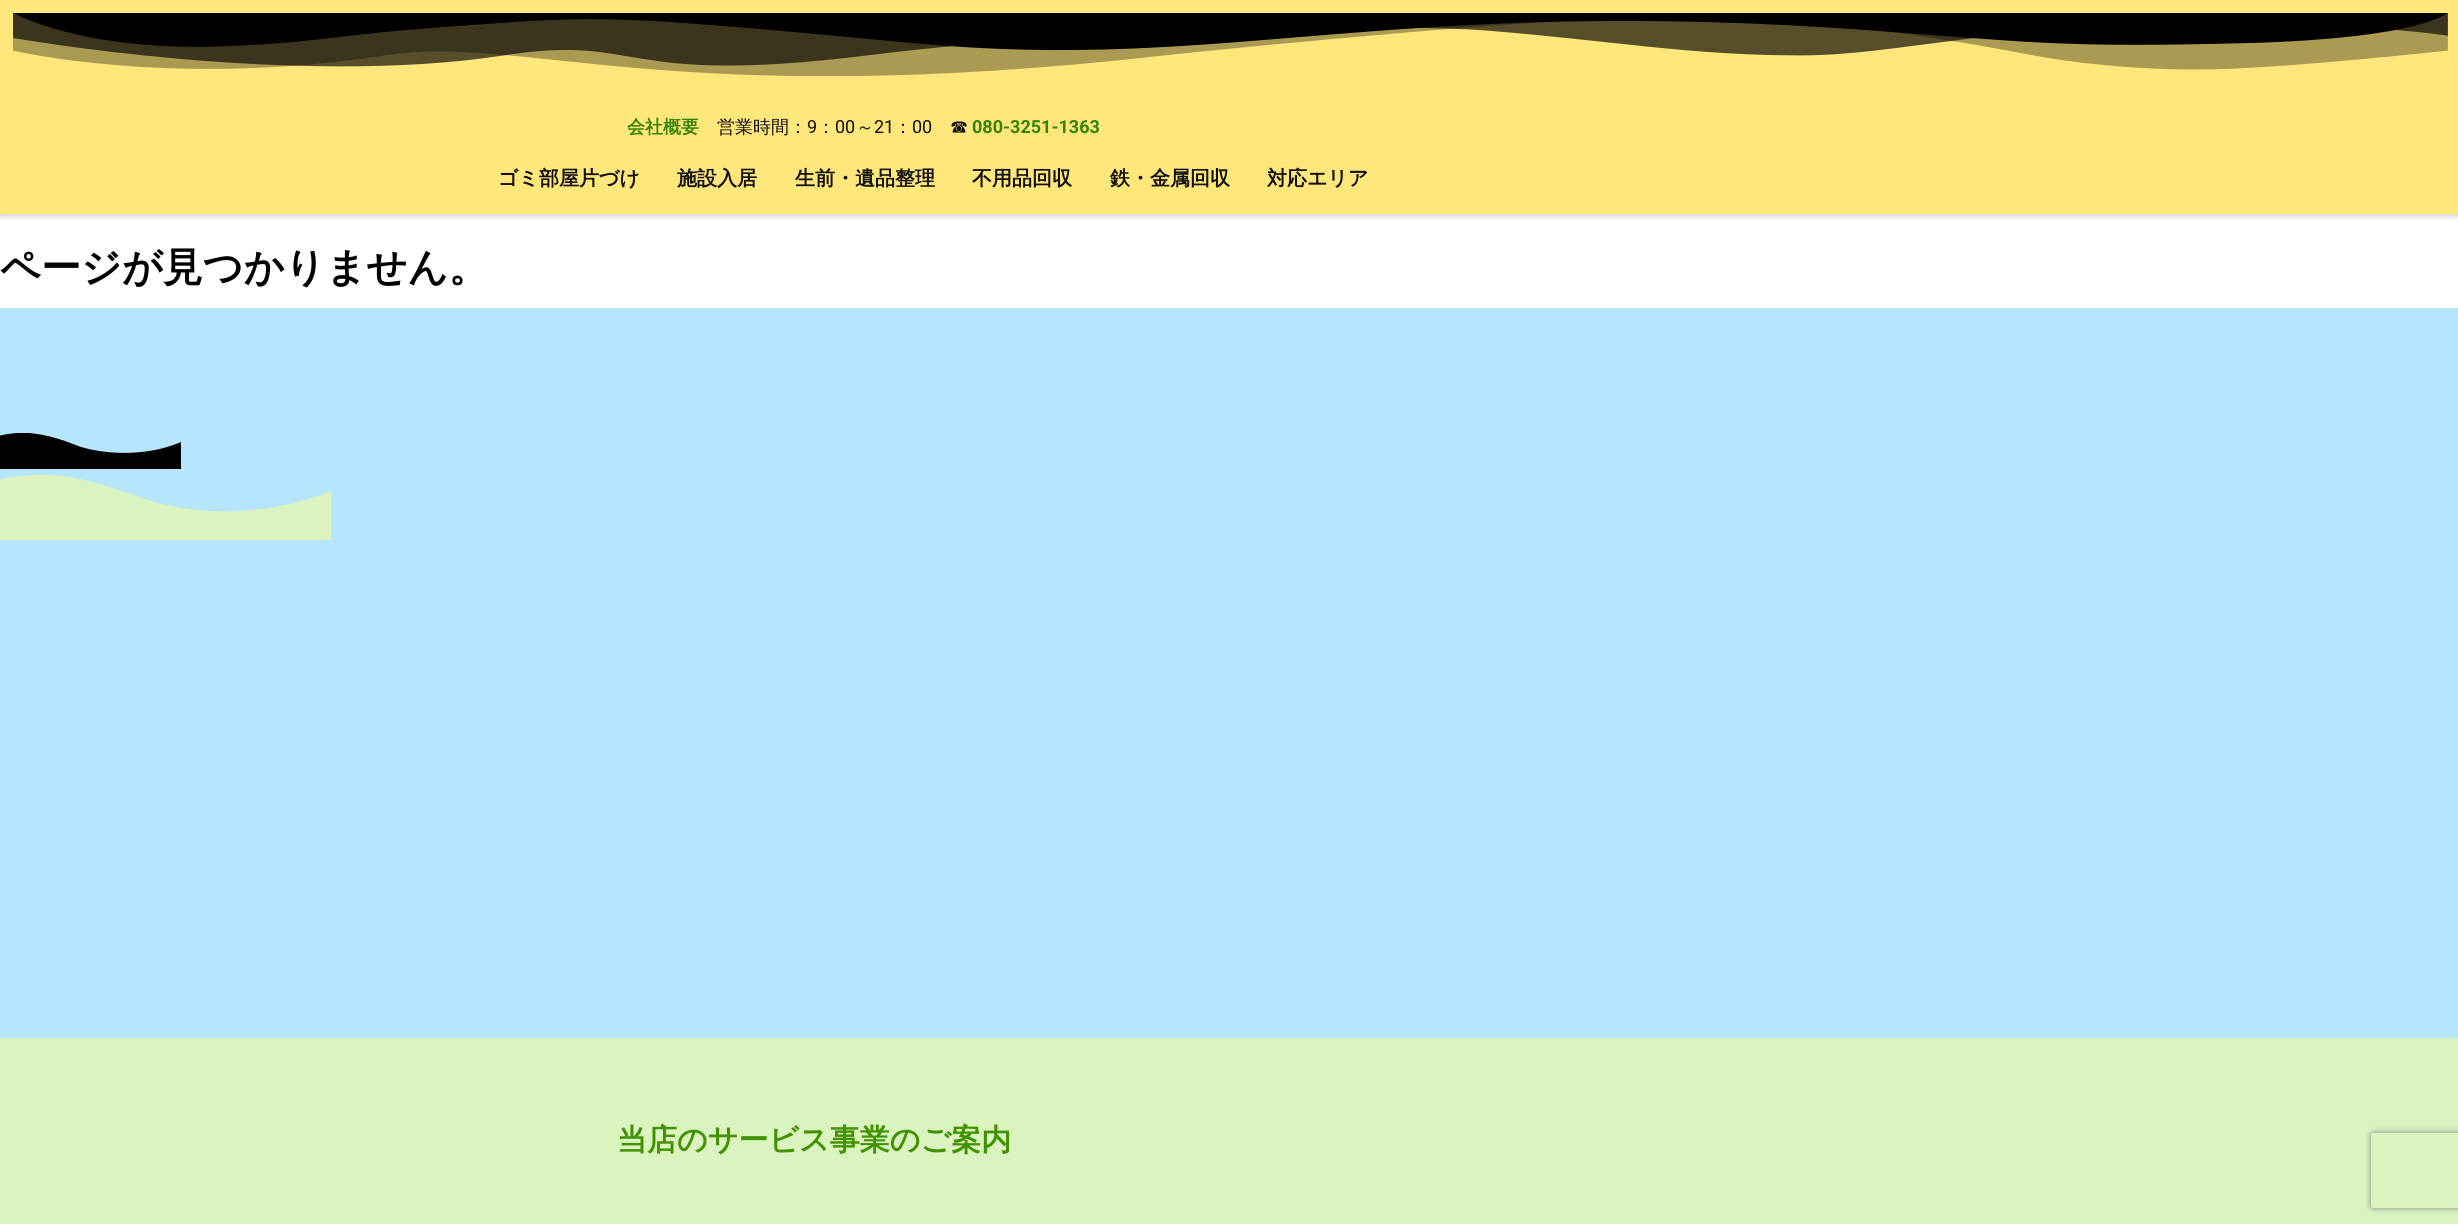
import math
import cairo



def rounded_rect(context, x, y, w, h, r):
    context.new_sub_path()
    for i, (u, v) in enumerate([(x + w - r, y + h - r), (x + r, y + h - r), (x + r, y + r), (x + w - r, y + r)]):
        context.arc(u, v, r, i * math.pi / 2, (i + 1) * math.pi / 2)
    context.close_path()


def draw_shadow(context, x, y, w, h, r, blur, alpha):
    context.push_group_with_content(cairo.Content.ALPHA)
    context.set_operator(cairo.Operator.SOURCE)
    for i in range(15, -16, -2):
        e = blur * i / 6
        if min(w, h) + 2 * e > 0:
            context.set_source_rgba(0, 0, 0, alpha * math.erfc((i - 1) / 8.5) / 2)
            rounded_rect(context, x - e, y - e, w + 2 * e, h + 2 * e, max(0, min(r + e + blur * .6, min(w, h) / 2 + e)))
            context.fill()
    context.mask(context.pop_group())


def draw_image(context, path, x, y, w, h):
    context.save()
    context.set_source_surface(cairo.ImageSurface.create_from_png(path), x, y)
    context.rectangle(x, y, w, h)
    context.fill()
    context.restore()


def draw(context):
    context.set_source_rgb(1, 1, 1)
    context.paint()
    context.set_source_rgb(0, 0, 0)
    draw_shadow(context, 0, 0, 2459, 214, 0, 4, 0.32)
    context.set_source_rgb(1, 231 / 255, 123 / 255)
    context.rectangle(0, 0, 2458, 214)
    context.fill()
    draw_image(context, "images/1.png", 13, 13, 2435, 63)
    context.set_source_rgb(181 / 255, 230 / 255, 254 / 255)
    context.rectangle(0, 308, 2458, 730)
    context.fill()
    context.save()
    context.rectangle(0, 433, 181, 36)
    context.clip()
    context.set_source_rgb(0, 0, 0)
    context.new_path()
    context.move_to(-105, 466)
    context.curve_to(-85, 464, -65, 460, -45, 452)
    context.curve_to(-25, 444, -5, 434, 18, 433)
    context.curve_to(34, 432, 50, 436, 65, 441)
    context.line_to(81, 447)
    context.curve_to(112, 456, 151, 455, 181, 442)
    context.line_to(181, 469)
    context.line_to(-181, 469)
    context.line_to(-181, 456)
    context.curve_to(-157, 465, -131, 469, -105, 466)
    context.close_path()
    context.fill()
    context.restore()
    context.set_source_rgb(218 / 255, 243 / 255, 191 / 255)
    context.new_path()
    context.move_to(-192, 535)
    context.curve_to(-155, 532, -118, 523, -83, 510)
    context.curve_to(-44, 495, -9, 476, 33, 475)
    context.curve_to(63, 473, 92, 481, 119, 490)
    context.line_to(148, 500)
    context.curve_to(197, 515, 252, 515, 300, 501)
    context.curve_to(311, 499, 321, 495, 331, 491)
    context.line_to(331, 540)
    context.line_to(-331, 540)
    context.line_to(-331, 517)
    context.curve_to(-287, 534, -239, 540, -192, 535)
    context.close_path()
    context.fill()
    context.rectangle(0, 1038, 2458, 186)
    context.fill()
    context.save()
    context.set_fill_rule(cairo.FillRule.EVEN_ODD)
    context.new_path()
    context.move_to(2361, 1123)
    context.line_to(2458, 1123)
    context.line_to(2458, 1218)
    context.line_to(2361, 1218)
    context.close_path()
    context.move_to(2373.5, 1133)
    context.line_to(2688.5, 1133)
    context.curve_to(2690, 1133, 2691, 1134, 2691, 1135.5)
    context.line_to(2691, 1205.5)
    context.curve_to(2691, 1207, 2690, 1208, 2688.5, 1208)
    context.line_to(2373.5, 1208)
    context.curve_to(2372, 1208, 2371, 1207, 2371, 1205.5)
    context.line_to(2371, 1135.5)
    context.curve_to(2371, 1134, 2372, 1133, 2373.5, 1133)
    context.close_path()
    context.clip()
    context.set_source_rgb(128 / 255, 128 / 255, 128 / 255)
    draw_shadow(context, 2371, 1133, 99, 75, 2.5, 3, 1)
    context.restore()
    context.select_font_face("WenQuanYi Zen Hei", cairo.FontSlant.NORMAL, cairo.FontWeight.BOLD)
    context.set_font_size(18)
    context.set_source_rgb(51 / 255, 131 / 255, 4 / 255)
    context.move_to(627, 133)
    context.show_text("会社概要")
    context.select_font_face("WenQuanYi Zen Hei Medium")
    context.set_source_rgb(15 / 255, 15 / 255, 15 / 255)
    context.move_to(717, 133)
    context.show_text("営業時間：")
    context.select_font_face("Roboto")
    context.move_to(807, 133)
    context.show_text("9")
    context.select_font_face("WenQuanYi Zen Hei Medium")
    context.move_to(817, 133)
    context.show_text("：")
    context.select_font_face("Roboto")
    context.move_to(835, 133)
    context.show_text("00")
    context.select_font_face("WenQuanYi Zen Hei Medium")
    context.move_to(856, 133)
    context.show_text("～")
    context.select_font_face("Roboto")
    context.move_to(874, 133)
    context.show_text("21")
    context.select_font_face("WenQuanYi Zen Hei Medium")
    context.move_to(894, 133)
    context.show_text("：")
    context.select_font_face("Roboto")
    context.move_to(912, 133)
    context.show_text("00")
    context.select_font_face("WenQuanYi Zen Hei Medium")
    context.move_to(950, 133)
    context.show_text("☎")
    context.select_font_face("Roboto", cairo.FontSlant.NORMAL, cairo.FontWeight.BOLD)
    context.set_source_rgb(51 / 255, 131 / 255, 4 / 255)
    context.move_to(972, 133)
    context.show_text("080-3251-1363")
    context.select_font_face("WenQuanYi Zen Hei", cairo.FontSlant.NORMAL, cairo.FontWeight.BOLD)
    context.set_font_size(20)
    context.set_source_rgb(15 / 255, 15 / 255, 15 / 255)
    context.move_to(498, 185)
    context.show_text("ゴミ部屋片づけ")
    context.move_to(677, 185)
    context.show_text("施設入居")
    context.move_to(795, 185)
    context.show_text("生前・遺品整理")
    context.move_to(972, 185)
    context.show_text("不用品回収")
    context.move_to(1110, 185)
    context.show_text("鉄・金属回収")
    context.move_to(1267, 185)
    context.show_text("対応エリア")
    context.set_font_size(40)
    context.set_source_rgb(0, 0, 0)
    context.move_to(0, 281)
    context.show_text("ページが見つかりません。")
    context.set_font_size(30)
    context.set_source_rgb(65 / 255, 146 / 255, 0)
    context.move_to(617, 1150)
    context.show_text("当店のサービス事業のご案内")


surface = cairo.ImageSurface(cairo.Format.RGB24, 2458, 1224)
context = cairo.Context(surface)
options = cairo.FontOptions()
options.set_hint_metrics(cairo.HintMetrics.OFF)
options.set_hint_style(cairo.HintStyle.NONE)
context.set_font_options(options)
context.set_miter_limit(4)
draw(context)
surface.write_to_png("out.png")
